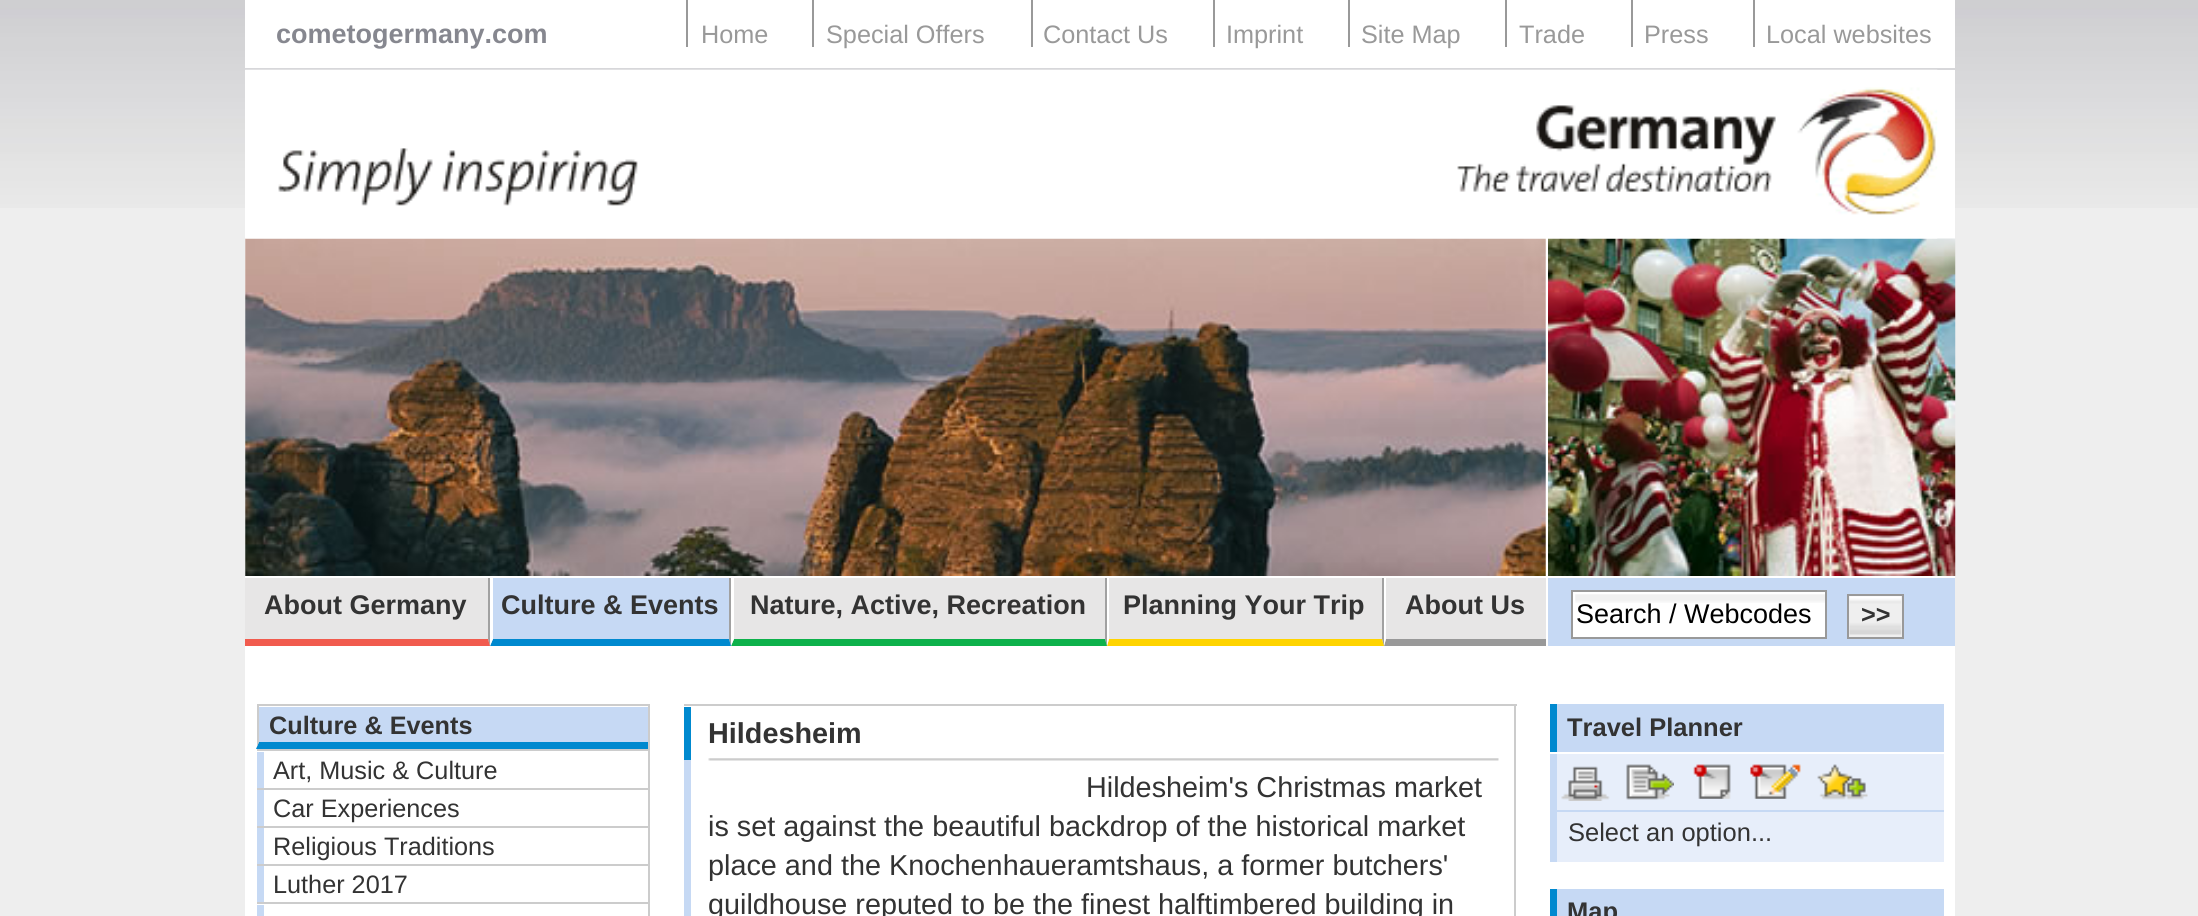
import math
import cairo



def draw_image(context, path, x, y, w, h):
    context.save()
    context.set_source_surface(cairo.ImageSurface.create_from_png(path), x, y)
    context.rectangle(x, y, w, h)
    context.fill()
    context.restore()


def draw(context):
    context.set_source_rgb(238 / 255, 238 / 255, 238 / 255)
    context.paint()
    draw_image(context, "images/1.png", 0, 0, 2198, 208)
    context.set_source_rgb(1, 1, 1)
    context.rectangle(245, 0, 1710, 916)
    context.fill()
    context.set_source_rgb(215 / 255, 215 / 255, 218 / 255)
    context.rectangle(245, 68, 1710, 2)
    context.fill()
    context.set_source_rgb(153 / 255, 153 / 255, 153 / 255)
    context.rectangle(686, 0, 2, 47)
    context.fill()
    context.rectangle(812, 0, 2, 47)
    context.fill()
    context.rectangle(1031, 0, 2, 47)
    context.fill()
    context.rectangle(1213, 0, 2, 47)
    context.fill()
    context.rectangle(1348, 0, 2, 47)
    context.fill()
    context.rectangle(1505, 0, 2, 47)
    context.fill()
    context.rectangle(1631, 0, 2, 47)
    context.fill()
    context.rectangle(1753, 0, 2, 47)
    context.fill()
    draw_image(context, "images/3.png", 245, 238, 1301, 338)
    draw_image(context, "images/4.png", 1548, 238, 408, 338)
    draw_image(context, "images/2.png", 245, 69, 1693, 170)
    context.set_source_rgb(231 / 255, 230 / 255, 230 / 255)
    context.rectangle(245, 578, 1301, 68)
    context.fill()
    context.set_source_rgb(161 / 255, 161 / 255, 161 / 255)
    context.new_path()
    context.move_to(490, 578)
    context.line_to(490, 646)
    context.line_to(488, 639)
    context.line_to(488, 578)
    context.close_path()
    context.fill()
    context.set_source_rgb(241 / 255, 91 / 255, 78 / 255)
    context.new_path()
    context.move_to(490, 646)
    context.line_to(245, 646)
    context.line_to(245, 639)
    context.line_to(488, 639)
    context.close_path()
    context.fill()
    context.set_source_rgb(161 / 255, 161 / 255, 161 / 255)
    context.new_path()
    context.move_to(731, 578)
    context.line_to(731, 646)
    context.line_to(729, 639)
    context.line_to(729, 578)
    context.close_path()
    context.fill()
    context.set_source_rgb(0, 137 / 255, 207 / 255)
    context.new_path()
    context.move_to(731, 646)
    context.line_to(490, 646)
    context.line_to(493, 639)
    context.line_to(729, 639)
    context.close_path()
    context.fill()
    context.set_source_rgb(1, 1, 1)
    context.new_path()
    context.move_to(490, 646)
    context.line_to(490, 578)
    context.line_to(493, 578)
    context.line_to(493, 639)
    context.close_path()
    context.fill()
    context.set_source_rgb(198 / 255, 217 / 255, 244 / 255)
    context.rectangle(493, 578, 236, 61)
    context.fill()
    context.set_source_rgb(161 / 255, 161 / 255, 161 / 255)
    context.new_path()
    context.move_to(1107, 578)
    context.line_to(1107, 646)
    context.line_to(1105, 639)
    context.line_to(1105, 578)
    context.close_path()
    context.fill()
    context.set_source_rgb(13 / 255, 177 / 255, 75 / 255)
    context.new_path()
    context.move_to(1107, 646)
    context.line_to(731, 646)
    context.line_to(734, 639)
    context.line_to(1105, 639)
    context.close_path()
    context.fill()
    context.set_source_rgb(1, 1, 1)
    context.new_path()
    context.move_to(731, 646)
    context.line_to(731, 578)
    context.line_to(734, 578)
    context.line_to(734, 639)
    context.close_path()
    context.fill()
    context.set_source_rgb(161 / 255, 161 / 255, 161 / 255)
    context.new_path()
    context.move_to(1384, 578)
    context.line_to(1384, 646)
    context.line_to(1382, 639)
    context.line_to(1382, 578)
    context.close_path()
    context.fill()
    context.set_source_rgb(1, 212 / 255, 0)
    context.new_path()
    context.move_to(1384, 646)
    context.line_to(1107, 646)
    context.line_to(1109, 639)
    context.line_to(1382, 639)
    context.close_path()
    context.fill()
    context.set_source_rgb(1, 1, 1)
    context.new_path()
    context.move_to(1107, 646)
    context.line_to(1107, 578)
    context.line_to(1109, 578)
    context.line_to(1109, 639)
    context.close_path()
    context.fill()
    context.set_source_rgb(153 / 255, 153 / 255, 153 / 255)
    context.new_path()
    context.move_to(1546, 646)
    context.line_to(1384, 646)
    context.line_to(1386, 639)
    context.line_to(1546, 639)
    context.close_path()
    context.fill()
    context.set_source_rgb(1, 1, 1)
    context.new_path()
    context.move_to(1384, 646)
    context.line_to(1384, 578)
    context.line_to(1386, 578)
    context.line_to(1386, 639)
    context.close_path()
    context.fill()
    context.set_source_rgb(198 / 255, 217 / 255, 244 / 255)
    context.rectangle(1548, 578, 407, 68)
    context.fill()
    context.set_source_rgb(1, 1, 1)
    context.rectangle(1573, 592, 252, 45)
    context.fill()
    draw_image(context, "images/5.png", 1575, 594, 250, 9)
    context.rectangle(1572, 591, 254, 47)
    context.set_source_rgb(153 / 255, 153 / 255, 153 / 255)
    context.stroke()
    context.set_source_rgb(239 / 255, 239 / 255, 239 / 255)
    context.rectangle(1849, 596, 53, 41)
    context.fill()
    draw_image(context, "images/6.png", 1849, 596, 53, 39)
    context.rectangle(1848, 595, 55, 43)
    context.set_source_rgb(153 / 255, 153 / 255, 153 / 255)
    context.stroke()
    context.set_source_rgb(204 / 255, 204 / 255, 204 / 255)
    context.rectangle(648, 704, 2, 212)
    context.fill()
    context.rectangle(257, 704, 391, 2)
    context.fill()
    context.set_source_rgb(198 / 255, 217 / 255, 244 / 255)
    context.rectangle(257, 707, 391, 40)
    context.fill()
    context.set_source_rgb(0, 137 / 255, 207 / 255)
    context.new_path()
    context.move_to(648, 749)
    context.line_to(256, 749)
    context.line_to(259, 742)
    context.line_to(648, 742)
    context.close_path()
    context.fill()
    context.save()
    context.rectangle(257, 704, 393, 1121)
    context.clip()
    context.set_source_rgb(204 / 255, 204 / 255, 204 / 255)
    context.new_path()
    context.move_to(256, 749)
    context.line_to(256, 706)
    context.line_to(259, 706)
    context.line_to(259, 742)
    context.close_path()
    context.fill()
    context.restore()
    context.set_source_rgb(204 / 255, 204 / 255, 204 / 255)
    context.rectangle(257, 749, 391, 2)
    context.fill()
    context.set_source_rgb(198 / 255, 217 / 255, 244 / 255)
    context.rectangle(257, 752, 7, 36)
    context.fill()
    context.set_source_rgb(204 / 255, 204 / 255, 204 / 255)
    context.rectangle(257, 788, 391, 2)
    context.fill()
    context.set_source_rgb(198 / 255, 217 / 255, 244 / 255)
    context.rectangle(257, 790, 7, 36)
    context.fill()
    context.set_source_rgb(204 / 255, 204 / 255, 204 / 255)
    context.rectangle(257, 826, 391, 2)
    context.fill()
    context.set_source_rgb(198 / 255, 217 / 255, 244 / 255)
    context.rectangle(257, 828, 7, 36)
    context.fill()
    context.set_source_rgb(204 / 255, 204 / 255, 204 / 255)
    context.rectangle(257, 864, 391, 2)
    context.fill()
    context.set_source_rgb(198 / 255, 217 / 255, 244 / 255)
    context.rectangle(257, 866, 7, 36)
    context.fill()
    context.set_source_rgb(204 / 255, 204 / 255, 204 / 255)
    context.rectangle(257, 902, 391, 2)
    context.fill()
    context.set_source_rgb(198 / 255, 217 / 255, 244 / 255)
    context.rectangle(257, 905, 7, 11)
    context.fill()
    context.set_source_rgb(204 / 255, 204 / 255, 204 / 255)
    context.rectangle(684, 704, 833, 2)
    context.fill()
    context.rectangle(1514, 704, 2, 212)
    context.fill()
    draw_image(context, "images/7.png", 708, 758, 791, 3)
    context.set_source_rgb(0, 137 / 255, 207 / 255)
    context.rectangle(684, 707, 7, 54)
    context.fill()
    context.set_source_rgb(198 / 255, 217 / 255, 244 / 255)
    context.new_path()
    context.move_to(684, 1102)
    context.line_to(684, 760)
    context.line_to(691, 760)
    context.line_to(691, 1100)
    context.close_path()
    context.fill()
    context.rectangle(1557, 704, 387, 48)
    context.fill()
    context.set_source_rgb(0, 137 / 255, 207 / 255)
    context.rectangle(1550, 704, 7, 48)
    context.fill()
    context.set_source_rgb(231 / 255, 238 / 255, 250 / 255)
    context.rectangle(1557, 754, 387, 56)
    context.fill()
    context.set_source_rgb(198 / 255, 217 / 255, 244 / 255)
    context.rectangle(1550, 754, 7, 56)
    context.fill()
    draw_image(context, "images/8.png", 1561, 766, 49, 35)
    draw_image(context, "images/9.png", 1626, 764, 48, 36)
    draw_image(context, "images/10.png", 1693, 764, 38, 35)
    draw_image(context, "images/11.png", 1750, 764, 51, 35)
    draw_image(context, "images/12.png", 1817, 764, 51, 36)
    context.set_source_rgb(231 / 255, 238 / 255, 250 / 255)
    context.rectangle(1557, 812, 387, 50)
    context.fill()
    context.set_source_rgb(198 / 255, 217 / 255, 244 / 255)
    context.rectangle(1550, 810, 394, 2)
    context.fill()
    context.rectangle(1550, 810, 7, 52)
    context.fill()
    context.rectangle(1557, 889, 387, 27)
    context.fill()
    context.set_source_rgb(0, 137 / 255, 207 / 255)
    context.rectangle(1550, 889, 7, 27)
    context.fill()
    context.select_font_face("Liberation Sans", cairo.FontSlant.NORMAL, cairo.FontWeight.BOLD)
    context.set_font_size(27)
    context.set_source_rgb(134 / 255, 135 / 255, 143 / 255)
    context.move_to(276, 43)
    context.show_text("cometogermany.com")
    context.select_font_face("Liberation Sans")
    context.set_font_size(25.25)
    context.set_source_rgb(153 / 255, 153 / 255, 153 / 255)
    context.move_to(701, 43)
    context.show_text("Home")
    context.move_to(826, 43)
    context.show_text("Special Offers")
    context.move_to(1043, 43)
    context.show_text("Contact Us")
    context.move_to(1226, 43)
    context.show_text("Imprint")
    context.move_to(1361, 43)
    context.show_text("Site Map")
    context.move_to(1519, 43)
    context.show_text("Trade")
    context.move_to(1644, 43)
    context.show_text("Press")
    context.move_to(1766, 43)
    context.show_text("Local websites")
    context.select_font_face("Liberation Sans", cairo.FontSlant.NORMAL, cairo.FontWeight.BOLD)
    context.set_font_size(27)
    context.set_source_rgb(51 / 255, 51 / 255, 51 / 255)
    context.move_to(264, 614)
    context.show_text("About Germany")
    context.move_to(501, 614)
    context.show_text("Culture & Events")
    context.move_to(750, 614)
    context.show_text("Nature, Active, Recreation")
    context.move_to(1123, 614)
    context.show_text("Planning Your Trip")
    context.move_to(1405, 614)
    context.show_text("About Us")
    context.select_font_face("Liberation Sans")
    context.set_source_rgb(0, 0, 0)
    context.move_to(1576, 623)
    context.show_text("Search / Webcodes")
    context.select_font_face("Liberation Sans", cairo.FontSlant.NORMAL, cairo.FontWeight.BOLD)
    context.set_font_size(25.25)
    context.set_source_rgb(51 / 255, 51 / 255, 51 / 255)
    context.move_to(1861, 623)
    context.show_text(">>")
    context.move_to(269, 734)
    context.show_text("Culture & Events")
    context.select_font_face("Liberation Sans")
    context.move_to(273, 779)
    context.show_text("Art, Music & Culture")
    context.move_to(273, 817)
    context.show_text("Car Experiences")
    context.move_to(273, 855)
    context.show_text("Religious Traditions")
    context.move_to(273, 893)
    context.show_text("Luther 2017")
    context.select_font_face("Liberation Sans", cairo.FontSlant.NORMAL, cairo.FontWeight.BOLD)
    context.set_font_size(28.8)
    context.move_to(708, 743)
    context.show_text("Hildesheim")
    context.select_font_face("Liberation Sans")
    context.move_to(1086, 797)
    context.show_text("Hildesheim's Christmas market")
    context.move_to(708, 836)
    context.show_text("is set against the beautiful backdrop of the historical market")
    context.move_to(708, 875)
    context.show_text("place and the Knochenhaueramtshaus, a former butchers'")
    context.move_to(708, 914)
    context.show_text("guildhouse reputed to be the finest halftimbered building in")
    context.select_font_face("Liberation Sans", cairo.FontSlant.NORMAL, cairo.FontWeight.BOLD)
    context.set_font_size(25.5)
    context.move_to(1567, 736)
    context.show_text("Travel Planner")
    context.select_font_face("Liberation Sans")
    context.move_to(1568, 841)
    context.show_text("Select an option...")
    context.select_font_face("Liberation Sans", cairo.FontSlant.NORMAL, cairo.FontWeight.BOLD)
    context.move_to(1567, 920)
    context.show_text("Map")


surface = cairo.ImageSurface(cairo.Format.RGB24, 2198, 916)
context = cairo.Context(surface)
options = cairo.FontOptions()
options.set_hint_metrics(cairo.HintMetrics.OFF)
options.set_hint_style(cairo.HintStyle.NONE)
context.set_font_options(options)
context.set_miter_limit(4)
draw(context)
surface.write_to_png("out.png")
